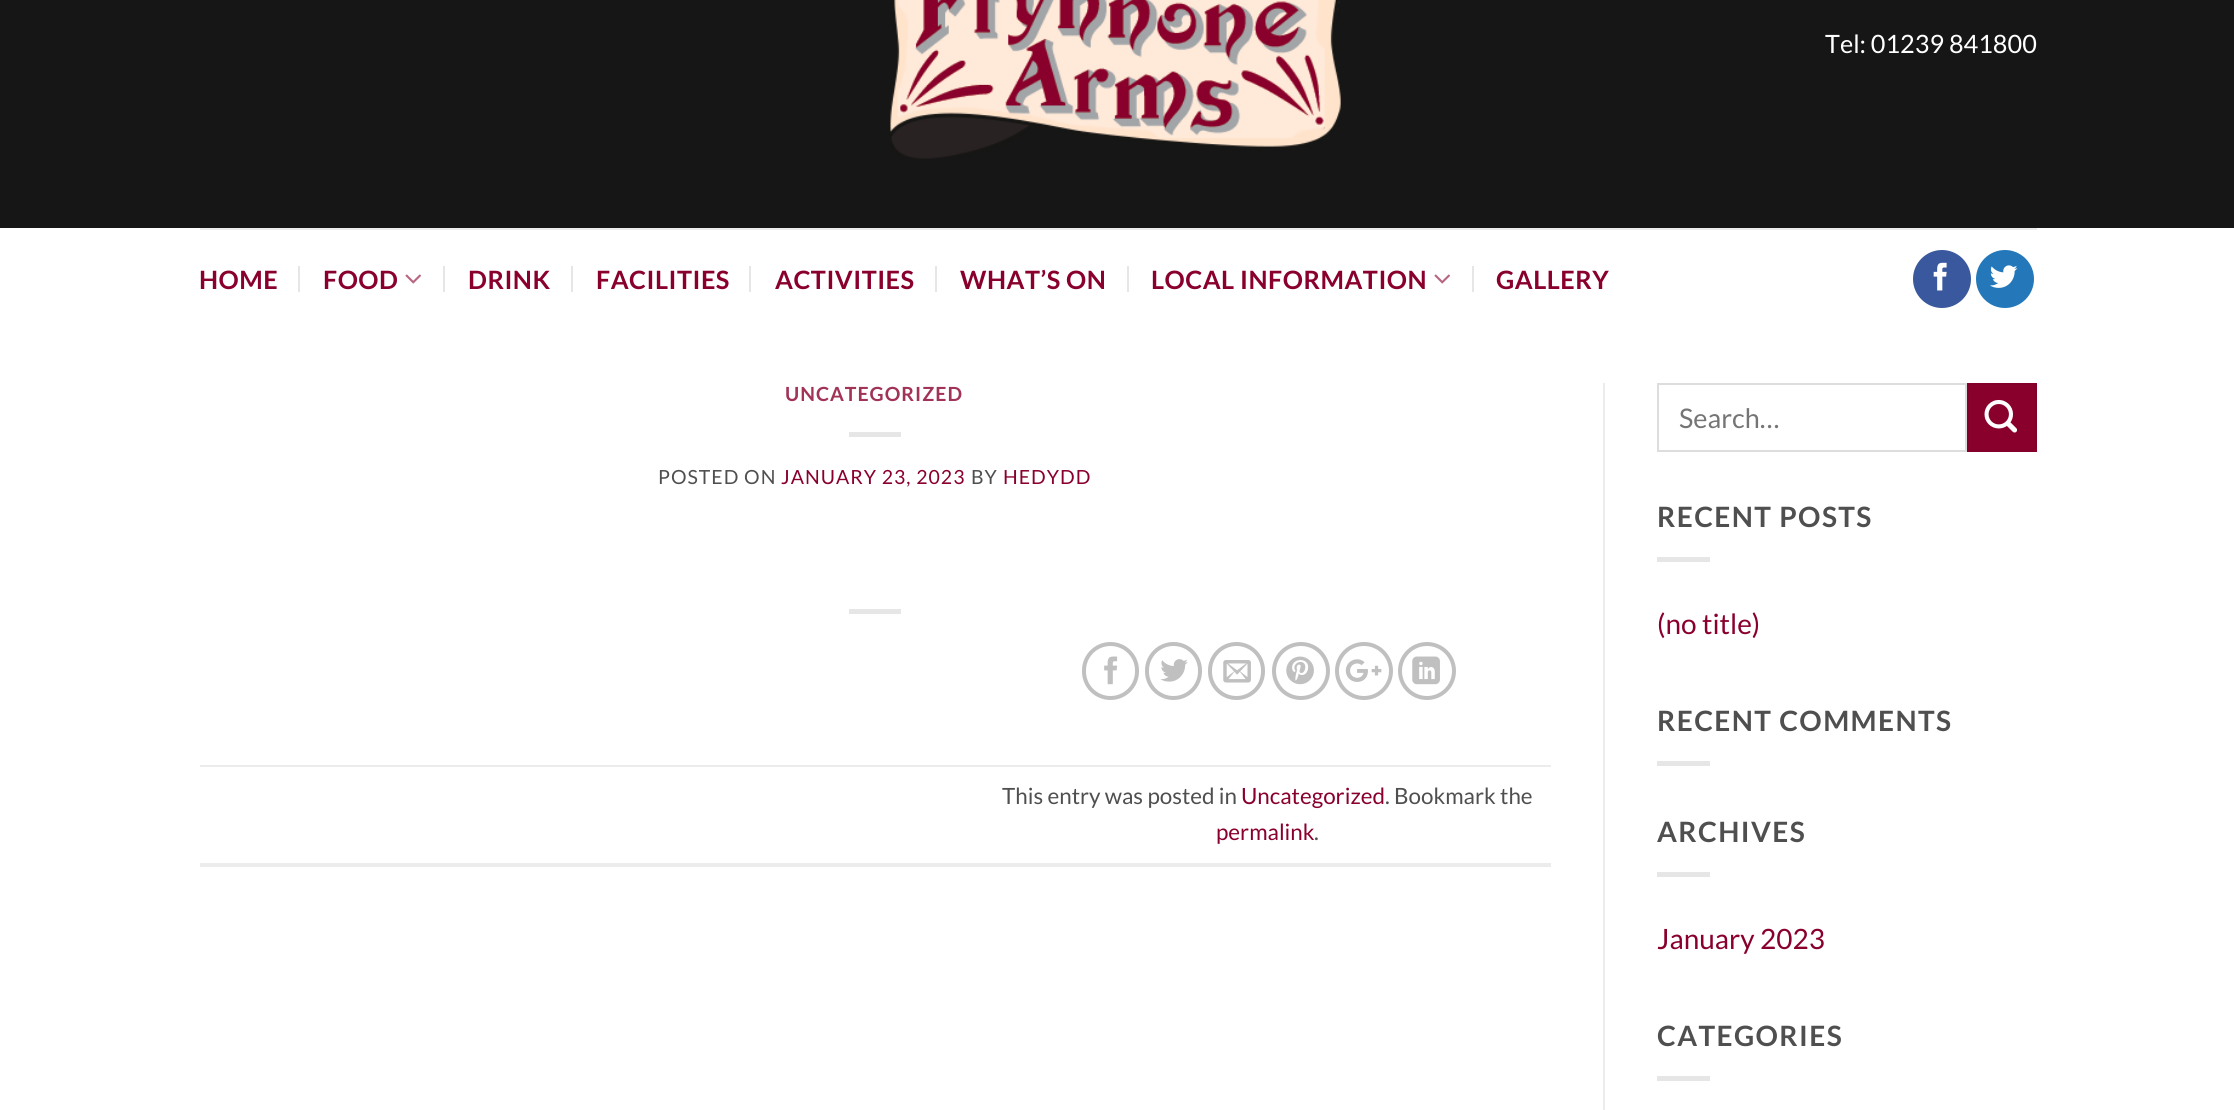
import math
import cairo



def draw_spaced(context, x, y, s, letter, word):
    context.move_to(x, y)
    for ch in s:
        context.show_text(ch)
        context.rel_move_to(letter + word * (ch == ' '), 0)


def rounded_rect(context, x, y, w, h, r):
    context.new_sub_path()
    for i, (u, v) in enumerate([(x + w - r, y + h - r), (x + r, y + h - r), (x + r, y + r), (x + w - r, y + r)]):
        context.arc(u, v, r, i * math.pi / 2, (i + 1) * math.pi / 2)
    context.close_path()


def draw_image(context, path, x, y, w, h):
    context.save()
    context.set_source_surface(cairo.ImageSurface.create_from_png(path), x, y)
    context.rectangle(x, y, w, h)
    context.fill()
    context.restore()


def draw(context):
    context.set_source_rgb(1, 1, 1)
    context.paint()
    context.set_source_rgb(22 / 255, 22 / 255, 22 / 255)
    context.rectangle(0, 0, 2234, 228)
    context.fill()
    draw_image(context, "images/1.png", 890, 0, 451, 159)
    context.set_source_rgb(237 / 255, 237 / 255, 237 / 255)
    context.rectangle(200, 228, 1837, 2)
    context.fill()
    context.set_source_rgb(230 / 255, 230 / 255, 230 / 255)
    context.rectangle(298, 266, 2, 26)
    context.fill()
    draw_image(context, "images/2.png", 405, 274, 16, 10)
    context.rectangle(443, 266, 2, 26)
    context.fill()
    context.rectangle(571, 266, 2, 26)
    context.fill()
    context.rectangle(749, 266, 2, 26)
    context.fill()
    context.rectangle(935, 266, 2, 26)
    context.fill()
    context.rectangle(1127, 266, 2, 26)
    context.fill()
    draw_image(context, "images/2.png", 1434, 274, 16, 10)
    context.rectangle(1472, 266, 2, 26)
    context.fill()
    context.set_source_rgb(58 / 255, 88 / 255, 157 / 255)
    context.arc(1942, 279, 28, 0, 2 * math.pi)
    context.fill_preserve()
    context.stroke()
    draw_image(context, "images/3.png", 1933, 262, 14, 29)
    context.set_source_rgb(36 / 255, 120 / 255, 186 / 255)
    context.arc(2005, 279, 28, 0, 2 * math.pi)
    context.fill_preserve()
    context.stroke()
    draw_image(context, "images/4.png", 1990, 265, 28, 23)
    context.set_source_rgb(230 / 255, 230 / 255, 230 / 255)
    context.rectangle(849, 432, 52, 5)
    context.fill()
    context.rectangle(849, 609, 52, 5)
    context.fill()
    rounded_rect(context, 1084, 644, 53, 54, 26.5)
    context.set_source_rgb(192 / 255, 192 / 255, 192 / 255)
    context.set_line_width(4)
    context.stroke()
    draw_image(context, "images/5.png", 1104, 656, 14, 29)
    rounded_rect(context, 1147, 644, 53, 54, 26.5)
    context.stroke()
    draw_image(context, "images/6.png", 1160, 659, 28, 23)
    rounded_rect(context, 1210, 644, 53, 54, 26.5)
    context.stroke()
    draw_image(context, "images/7.png", 1223, 660, 28, 23)
    context.arc(1301, 671, 27, 0, 2 * math.pi)
    context.stroke()
    draw_image(context, "images/8.png", 1286, 656, 28, 29)
    context.arc(1364, 671, 27, 0, 2 * math.pi)
    context.stroke()
    draw_image(context, "images/9.png", 1345, 659, 37, 23)
    context.arc(1427, 671, 27, 0, 2 * math.pi)
    context.stroke()
    draw_image(context, "images/10.png", 1412, 656, 28, 29)
    context.set_source_rgb(236 / 255, 236 / 255, 236 / 255)
    context.rectangle(200, 765, 1351, 2)
    context.fill()
    context.rectangle(200, 863, 1351, 4)
    context.fill()
    context.rectangle(1603, 383, 2, 727)
    context.fill()
    context.rectangle(1658, 384, 308, 67)
    context.set_source_rgb(221 / 255, 221 / 255, 221 / 255)
    context.set_line_width(2)
    context.stroke()
    context.set_source_rgb(137 / 255, 0, 44 / 255)
    context.rectangle(1968, 384, 68, 67)
    context.fill_preserve()
    context.set_source_rgb(130 / 255, 0, 42 / 255)
    context.stroke()
    draw_image(context, "images/11.png", 1984, 399, 34, 34)
    context.set_source_rgb(230 / 255, 230 / 255, 230 / 255)
    context.rectangle(1657, 557, 53, 5)
    context.fill()
    context.rectangle(1657, 761, 53, 5)
    context.fill()
    context.rectangle(1657, 872, 53, 5)
    context.fill()
    context.rectangle(1657, 1076, 53, 5)
    context.fill()
    context.select_font_face("Lato")
    context.set_font_size(25.25)
    context.set_source_rgb(1, 1, 1)
    context.move_to(1825, 53)
    context.show_text("Tel: 01239 841800")
    context.select_font_face("Lato", cairo.FontSlant.NORMAL, cairo.FontWeight.BOLD)
    context.set_source_rgb(137 / 255, 0, 44 / 255)
    draw_spaced(context, 199, 289, "HOME", 0.5, 0)
    draw_spaced(context, 323, 289, "FOOD", 0.5, 0)
    draw_spaced(context, 468, 289, "DRINK", 0.5, 0)
    draw_spaced(context, 596, 289, "FACILITIES", 0.5, 0)
    draw_spaced(context, 775, 289, "ACTIVITIES", 0.5, 0)
    draw_spaced(context, 960, 289, "WHAT’S ON", 0.5, 0)
    draw_spaced(context, 1151, 289, "LOCAL INFORMATION", 0.5, 0)
    draw_spaced(context, 1496, 289, "GALLERY", 0.5, 0)
    context.set_font_size(19.5)
    context.set_source_rgb(161 / 255, 51 / 255, 86 / 255)
    draw_spaced(context, 785, 401, "UNCATEGORIZED", 1, 0)
    context.select_font_face("Lato")
    context.set_source_rgb(79 / 255, 79 / 255, 79 / 255)
    draw_spaced(context, 658, 484, "POSTED ON", 1, 0)
    context.set_source_rgb(137 / 255, 0, 44 / 255)
    draw_spaced(context, 781, 484, "JANUARY 23, 2023", 1, 0)
    context.set_source_rgb(79 / 255, 79 / 255, 79 / 255)
    draw_spaced(context, 971, 484, "BY", 1, 0)
    context.set_source_rgb(137 / 255, 0, 44 / 255)
    draw_spaced(context, 1003, 484, "HEDYDD", 1, 0)
    context.set_font_size(22.4)
    context.set_source_rgb(79 / 255, 79 / 255, 79 / 255)
    context.move_to(1002, 804)
    context.show_text("This entry was posted in")
    context.set_source_rgb(137 / 255, 0, 44 / 255)
    context.move_to(1241, 804)
    context.show_text("Uncategorized")
    context.set_source_rgb(79 / 255, 79 / 255, 79 / 255)
    context.move_to(1385, 804)
    context.show_text(". Bookmark the")
    context.set_source_rgb(137 / 255, 0, 44 / 255)
    context.move_to(1216, 840)
    context.show_text("permalink")
    context.set_source_rgb(79 / 255, 79 / 255, 79 / 255)
    context.move_to(1314, 840)
    context.show_text(".")
    context.set_font_size(27)
    context.set_source_rgb(117 / 255, 117 / 255, 117 / 255)
    context.move_to(1679, 428)
    context.show_text("Search…")
    context.select_font_face("Lato", cairo.FontSlant.NORMAL, cairo.FontWeight.BOLD)
    context.set_font_size(28)
    context.set_source_rgb(79 / 255, 79 / 255, 79 / 255)
    draw_spaced(context, 1657, 527, "RECENT POSTS", 1.4, 0)
    context.select_font_face("Lato")
    context.set_source_rgb(137 / 255, 0, 44 / 255)
    context.move_to(1657, 634)
    context.show_text("(no title)")
    context.select_font_face("Lato", cairo.FontSlant.NORMAL, cairo.FontWeight.BOLD)
    context.set_source_rgb(79 / 255, 79 / 255, 79 / 255)
    draw_spaced(context, 1657, 731, "RECENT COMMENTS", 1.4, 0)
    draw_spaced(context, 1657, 842, "ARCHIVES", 1.4, 0)
    context.select_font_face("Lato")
    context.set_source_rgb(137 / 255, 0, 44 / 255)
    context.move_to(1657, 949)
    context.show_text("January 2023")
    context.select_font_face("Lato", cairo.FontSlant.NORMAL, cairo.FontWeight.BOLD)
    context.set_source_rgb(79 / 255, 79 / 255, 79 / 255)
    draw_spaced(context, 1657, 1046, "CATEGORIES", 1.4, 0)


surface = cairo.ImageSurface(cairo.Format.RGB24, 2234, 1110)
context = cairo.Context(surface)
options = cairo.FontOptions()
options.set_hint_metrics(cairo.HintMetrics.OFF)
options.set_hint_style(cairo.HintStyle.NONE)
context.set_font_options(options)
context.set_miter_limit(4)
draw(context)
surface.write_to_png("out.png")
